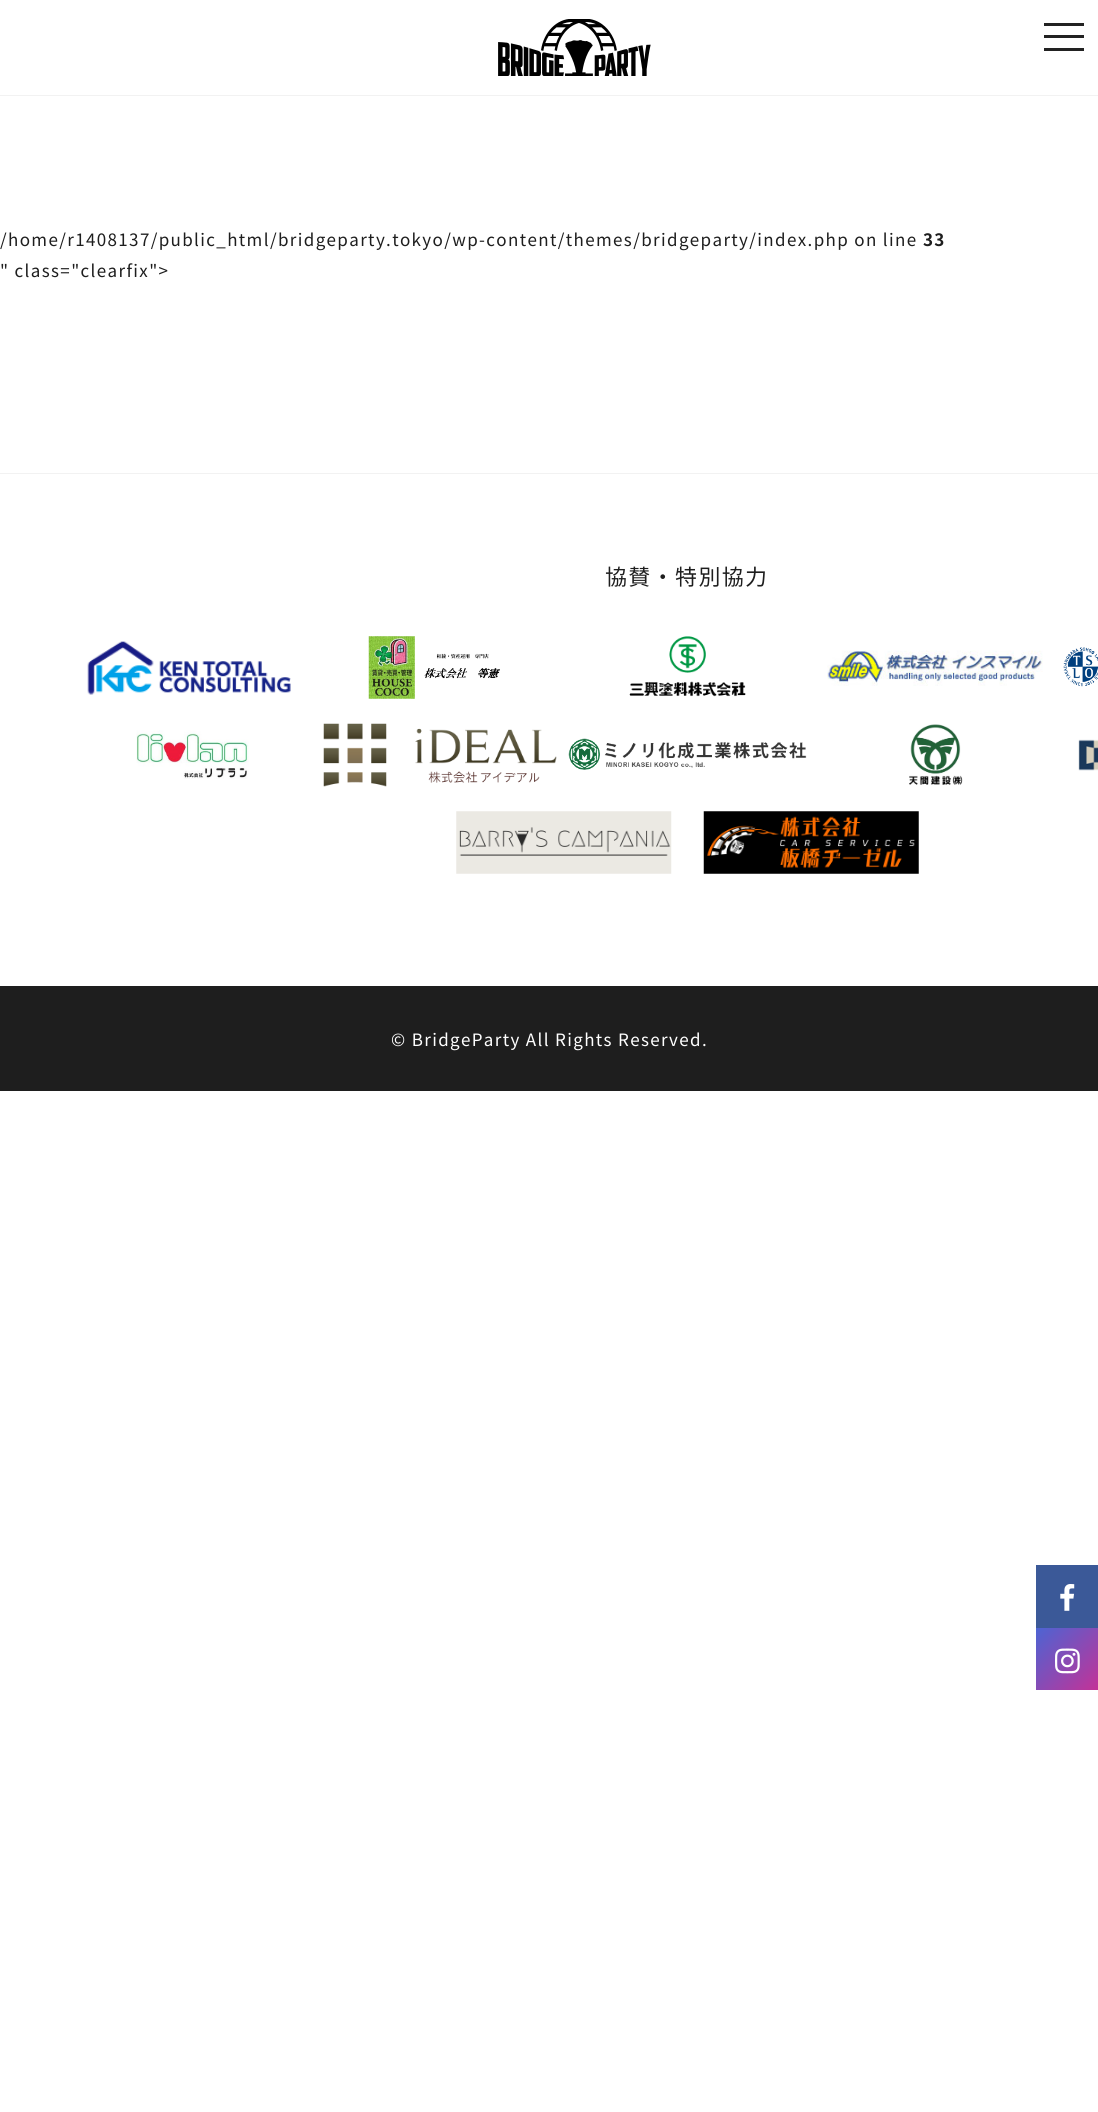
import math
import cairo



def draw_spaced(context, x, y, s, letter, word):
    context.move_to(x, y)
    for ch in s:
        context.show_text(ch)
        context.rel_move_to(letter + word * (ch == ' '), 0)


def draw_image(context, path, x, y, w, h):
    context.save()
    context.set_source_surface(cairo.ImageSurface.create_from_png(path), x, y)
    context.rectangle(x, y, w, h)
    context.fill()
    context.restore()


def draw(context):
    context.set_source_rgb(1, 1, 1)
    context.paint()
    context.set_source_rgb(242 / 255, 242 / 255, 242 / 255)
    context.rectangle(0, 95, 1098, 1)
    context.fill()
    draw_image(context, "images/1.png", 498, 19, 153, 57)
    context.set_source_rgb(34 / 255, 34 / 255, 34 / 255)
    context.rectangle(1044, 35, 40, 3)
    context.fill()
    context.rectangle(1044, 23, 40, 3)
    context.fill()
    context.rectangle(1044, 48, 40, 3)
    context.fill()
    context.set_source_rgb(242 / 255, 242 / 255, 242 / 255)
    context.rectangle(0, 473, 1098, 1)
    context.fill()
    draw_image(context, "images/2.png", 87, 641, 204, 54)
    draw_image(context, "images/3.png", 368, 636, 132, 63)
    draw_image(context, "images/4.png", 629, 636, 117, 61)
    draw_image(context, "images/5.png", 827, 650, 216, 36)
    draw_image(context, "images/6.png", 1063, 647, 35, 40)
    draw_image(context, "images/7.png", 136, 730, 113, 49)
    draw_image(context, "images/8.png", 323, 723, 234, 64)
    draw_image(context, "images/9.png", 568, 738, 239, 32)
    draw_image(context, "images/10.png", 909, 724, 54, 61)
    draw_image(context, "images/11.png", 1078, 739, 20, 32)
    draw_image(context, "images/12.png", 456, 811, 216, 63)
    draw_image(context, "images/13.png", 703, 811, 216, 63)
    context.set_source_rgb(30 / 255, 30 / 255, 30 / 255)
    context.rectangle(0, 986, 1098, 105)
    context.fill()
    context.set_source_rgb(59 / 255, 89 / 255, 152 / 255)
    context.rectangle(1036, 1565, 62, 63)
    context.fill()
    draw_image(context, "images/14.png", 1060, 1584, 15, 27)
    gradient = cairo.LinearGradient(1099, 1690, 1036, 1628)
    gradient.add_color_stop_rgba(0, 196 / 255, 50 / 255, 151 / 255, 1)
    gradient.add_color_stop_rgba(1, 76 / 255, 100 / 255, 211 / 255, 1)
    context.set_source(gradient)
    context.rectangle(1036, 1628, 62, 62)
    context.fill()
    draw_image(context, "images/15.png", 1055, 1648, 25, 26)
    context.select_font_face("Noto Sans JP")
    context.set_font_size(17)
    context.set_source_rgb(30 / 255, 30 / 255, 30 / 255)
    draw_spaced(context, 0, 246, "/home/r1408137/public_html/bridgeparty.tokyo/wp-content/themes/bridgeparty/index.php on line", 1.35, 0)
    context.select_font_face("Noto Sans JP", cairo.FontSlant.NORMAL, cairo.FontWeight.BOLD)
    draw_spaced(context, 923, 246, "33", 1.35, 0)
    context.select_font_face("Noto Sans JP")
    draw_spaced(context, 0, 277, "\" class=\"clearfix\">", 1.35, 0)
    context.set_font_size(22)
    draw_spaced(context, 605, 585, "協賛・特別協力", 1.35, 0)
    context.set_font_size(17)
    context.set_source_rgb(1, 1, 1)
    draw_spaced(context, 391, 1046, "© BridgeParty All Rights Reserved.", 1.35, 0)


surface = cairo.ImageSurface(cairo.Format.RGB24, 1098, 2112)
context = cairo.Context(surface)
options = cairo.FontOptions()
options.set_hint_metrics(cairo.HintMetrics.OFF)
options.set_hint_style(cairo.HintStyle.NONE)
context.set_font_options(options)
context.set_miter_limit(4)
draw(context)
surface.write_to_png("out.png")
